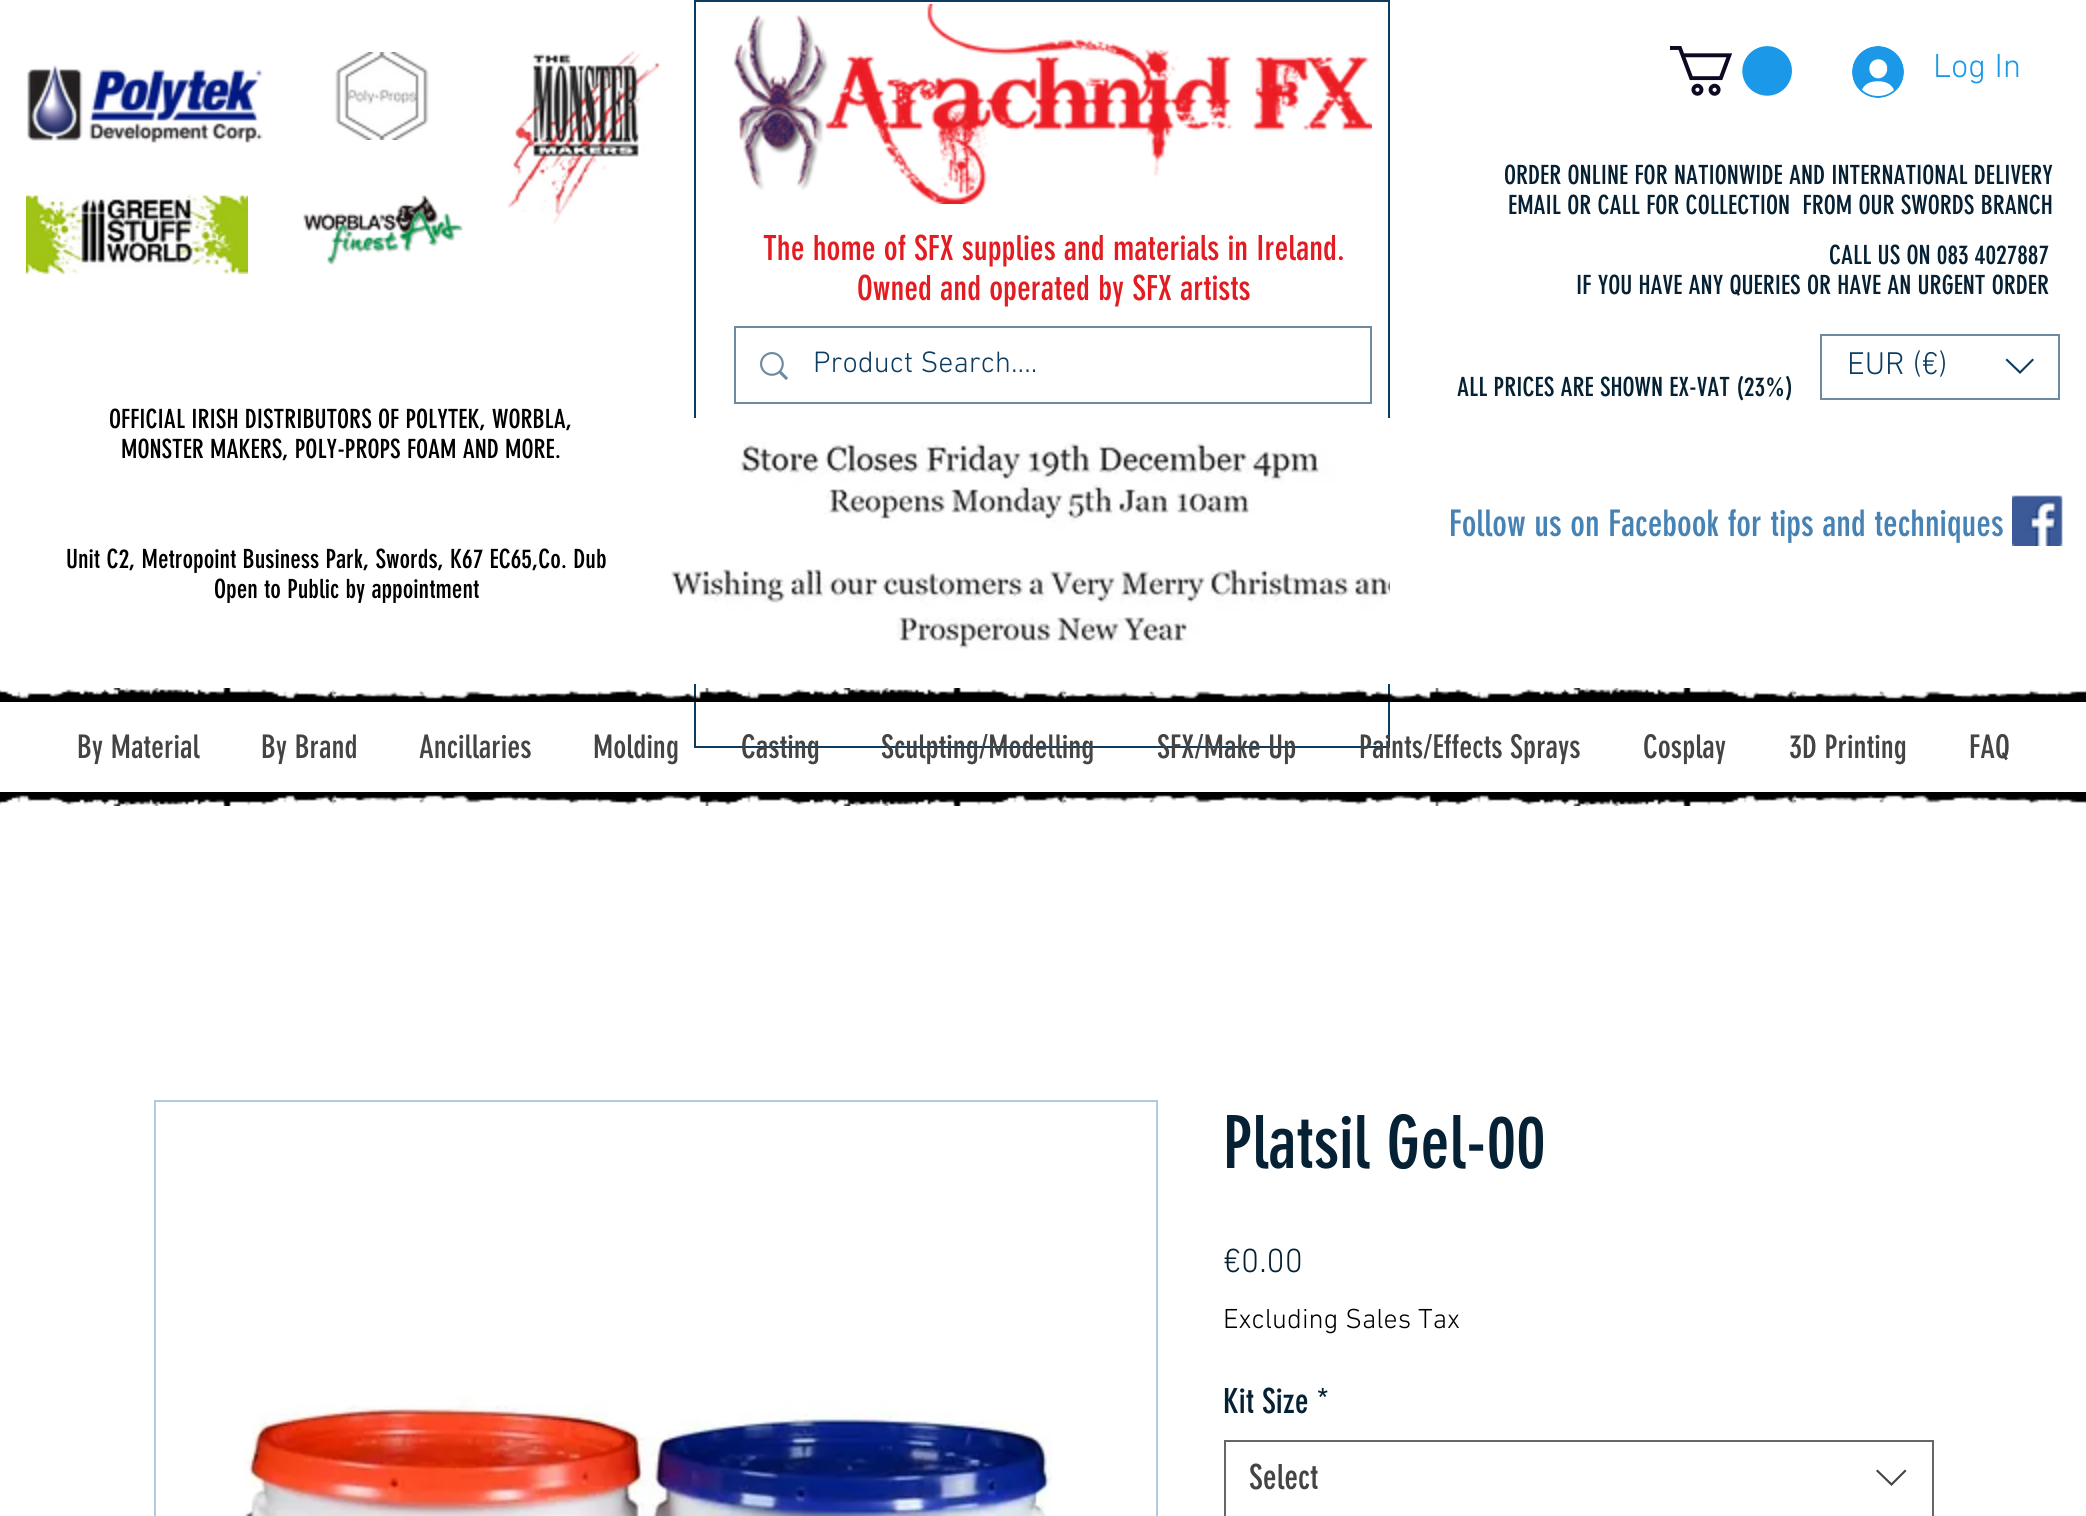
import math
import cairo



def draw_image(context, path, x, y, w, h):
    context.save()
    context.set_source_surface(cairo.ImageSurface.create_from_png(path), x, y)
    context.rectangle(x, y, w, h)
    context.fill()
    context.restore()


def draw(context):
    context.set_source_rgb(1, 1, 1)
    context.paint()
    context.rectangle(695, 1, 694, 746)
    context.set_source_rgb(12 / 255, 60 / 255, 96 / 255)
    context.stroke()
    draw_image(context, "images/1.png", 734, 4, 638, 200)
    context.rectangle(735, 327, 636, 76)
    context.set_source_rgb(109 / 255, 138 / 255, 160 / 255)
    context.stroke()
    draw_image(context, "images/2.png", 760, 352, 28, 28)
    draw_image(context, "images/3.png", 608, 418, 782, 266)
    draw_image(context, "images/4.png", 1670, 46, 122, 50)
    draw_image(context, "images/5.png", 1852, 46, 52, 52)
    context.rectangle(1821, 335, 238, 64)
    context.stroke()
    context.set_source_rgb(12 / 255, 60 / 255, 96 / 255)
    context.set_fill_rule(cairo.FillRule.EVEN_ODD)
    context.new_path()
    context.move_to(2032.5, 358.5)
    context.line_to(2034, 360)
    context.line_to(2020, 374)
    context.line_to(2005.5, 360)
    context.line_to(2007, 358.5)
    context.line_to(2020, 371)
    context.close_path()
    context.fill()
    draw_image(context, "images/6.png", 2012, 495, 51, 51)
    draw_image(context, "images/7.png", 27, 65, 236, 78)
    draw_image(context, "images/8.png", 335, 52, 94, 88)
    draw_image(context, "images/9.png", 507, 50, 154, 174)
    draw_image(context, "images/10.png", 26, 194, 222, 80)
    draw_image(context, "images/11.png", 303, 195, 160, 70)
    draw_image(context, "images/12.png", 0, 688, 2086, 14)
    draw_image(context, "images/13.png", 0, 792, 2086, 14)
    context.rectangle(155, 1101, 1002, 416)
    context.set_source_rgb(175 / 255, 203 / 255, 224 / 255)
    context.stroke()
    draw_image(context, "images/14.png", 244, 1395, 808, 121)
    context.rectangle(1225, 1441, 708, 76)
    context.set_source_rgb(102 / 255, 102 / 255, 102 / 255)
    context.stroke()
    context.set_source_rgb(68 / 255, 68 / 255, 68 / 255)
    context.new_path()
    context.move_to(1905, 1469.5)
    context.line_to(1906.5, 1471)
    context.line_to(1891.5, 1486)
    context.line_to(1876, 1471)
    context.line_to(1877.5, 1469.5)
    context.line_to(1891.5, 1483)
    context.close_path()
    context.fill()
    context.select_font_face("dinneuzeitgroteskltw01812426")
    context.set_font_size(34)
    context.set_source_rgb(226 / 255, 28 / 255, 33 / 255)
    context.move_to(763, 260)
    context.show_text("The home of SFX supplies and materials in Ireland.")
    context.move_to(857, 300)
    context.show_text("Owned and operated by SFX artists")
    context.select_font_face("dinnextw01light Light")
    context.set_font_size(30)
    context.set_source_rgb(12 / 255, 60 / 255, 96 / 255)
    context.move_to(813, 372)
    context.show_text("Product Search....")
    context.set_font_size(34)
    context.set_source_rgb(27 / 255, 153 / 255, 232 / 255)
    context.move_to(1933, 77)
    context.show_text("Log In")
    context.select_font_face("dinneuzeitgroteskltw01812426")
    context.set_font_size(26)
    context.set_source_rgb(6 / 255, 33 / 255, 52 / 255)
    context.move_to(1504, 184)
    context.show_text("ORDER ONLINE FOR NATIONWIDE AND INTERNATIONAL DELIVERY")
    context.move_to(1508, 214)
    context.show_text("EMAIL OR CALL FOR COLLECTION  FROM OUR SWORDS BRANCH")
    context.move_to(1829, 264)
    context.show_text("CALL US ON 083 4027887")
    context.move_to(1576, 294)
    context.show_text("IF YOU HAVE ANY QUERIES OR HAVE AN URGENT ORDER")
    context.select_font_face("dinnextw01light Light")
    context.set_font_size(32)
    context.set_source_rgb(12 / 255, 60 / 255, 96 / 255)
    context.move_to(1847, 374)
    context.show_text("EUR (€)")
    context.select_font_face("dinneuzeitgroteskltw01812426")
    context.set_font_size(26)
    context.set_source_rgb(6 / 255, 33 / 255, 52 / 255)
    context.move_to(1457, 396)
    context.show_text("ALL PRICES ARE SHOWN EX-VAT (23%)")
    context.set_font_size(36)
    context.set_source_rgb(70 / 255, 130 / 255, 180 / 255)
    context.move_to(1449, 536)
    context.show_text("Follow us on Facebook for tips and techniques")
    context.set_font_size(26)
    context.set_source_rgb(0, 0, 0)
    context.move_to(109, 428)
    context.show_text("OFFICIAL IRISH DISTRIBUTORS OF POLYTEK, WORBLA,")
    context.move_to(121, 458)
    context.show_text("MONSTER MAKERS, POLY-PROPS FOAM AND MORE.")
    context.move_to(66, 568)
    context.show_text("Unit C2, Metropoint Business Park, Swords, K67 EC65,Co. Dub")
    context.move_to(214, 598)
    context.show_text("Open to Public by appointment")
    context.set_font_size(32)
    context.set_source_rgb(68 / 255, 68 / 255, 68 / 255)
    context.move_to(77, 758)
    context.show_text("By Material")
    context.move_to(261, 758)
    context.show_text("By Brand")
    context.move_to(419, 758)
    context.show_text("Ancillaries")
    context.move_to(593, 758)
    context.show_text("Molding")
    context.move_to(741, 758)
    context.show_text("Casting")
    context.move_to(881, 758)
    context.show_text("Sculpting/Modelling")
    context.move_to(1157, 758)
    context.show_text("SFX/Make Up")
    context.move_to(1359, 758)
    context.show_text("Paints/Effects Sprays")
    context.move_to(1643, 758)
    context.show_text("Cosplay")
    context.move_to(1789, 758)
    context.show_text("3D Printing")
    context.move_to(1969, 758)
    context.show_text("FAQ")
    context.set_font_size(72)
    context.set_source_rgb(6 / 255, 33 / 255, 52 / 255)
    context.move_to(1223, 1168)
    context.show_text("Platsil Gel-00")
    context.select_font_face("dinnextw01light Light")
    context.set_font_size(34)
    context.move_to(1223, 1272)
    context.show_text("€0.00")
    context.set_font_size(28)
    context.set_source_rgb(0, 0, 0)
    context.move_to(1223, 1328)
    context.show_text("Excluding Sales Tax")
    context.select_font_face("dinneuzeitgroteskltw01812426")
    context.set_font_size(34)
    context.set_source_rgb(6 / 255, 33 / 255, 52 / 255)
    context.move_to(1223, 1413)
    context.show_text("Kit Size *")
    context.set_source_rgb(68 / 255, 68 / 255, 68 / 255)
    context.move_to(1249, 1489)
    context.show_text("Select")


surface = cairo.ImageSurface(cairo.Format.RGB24, 2086, 1516)
context = cairo.Context(surface)
options = cairo.FontOptions()
options.set_hint_metrics(cairo.HintMetrics.OFF)
options.set_hint_style(cairo.HintStyle.NONE)
context.set_font_options(options)
context.set_miter_limit(4)
draw(context)
surface.write_to_png("out.png")
